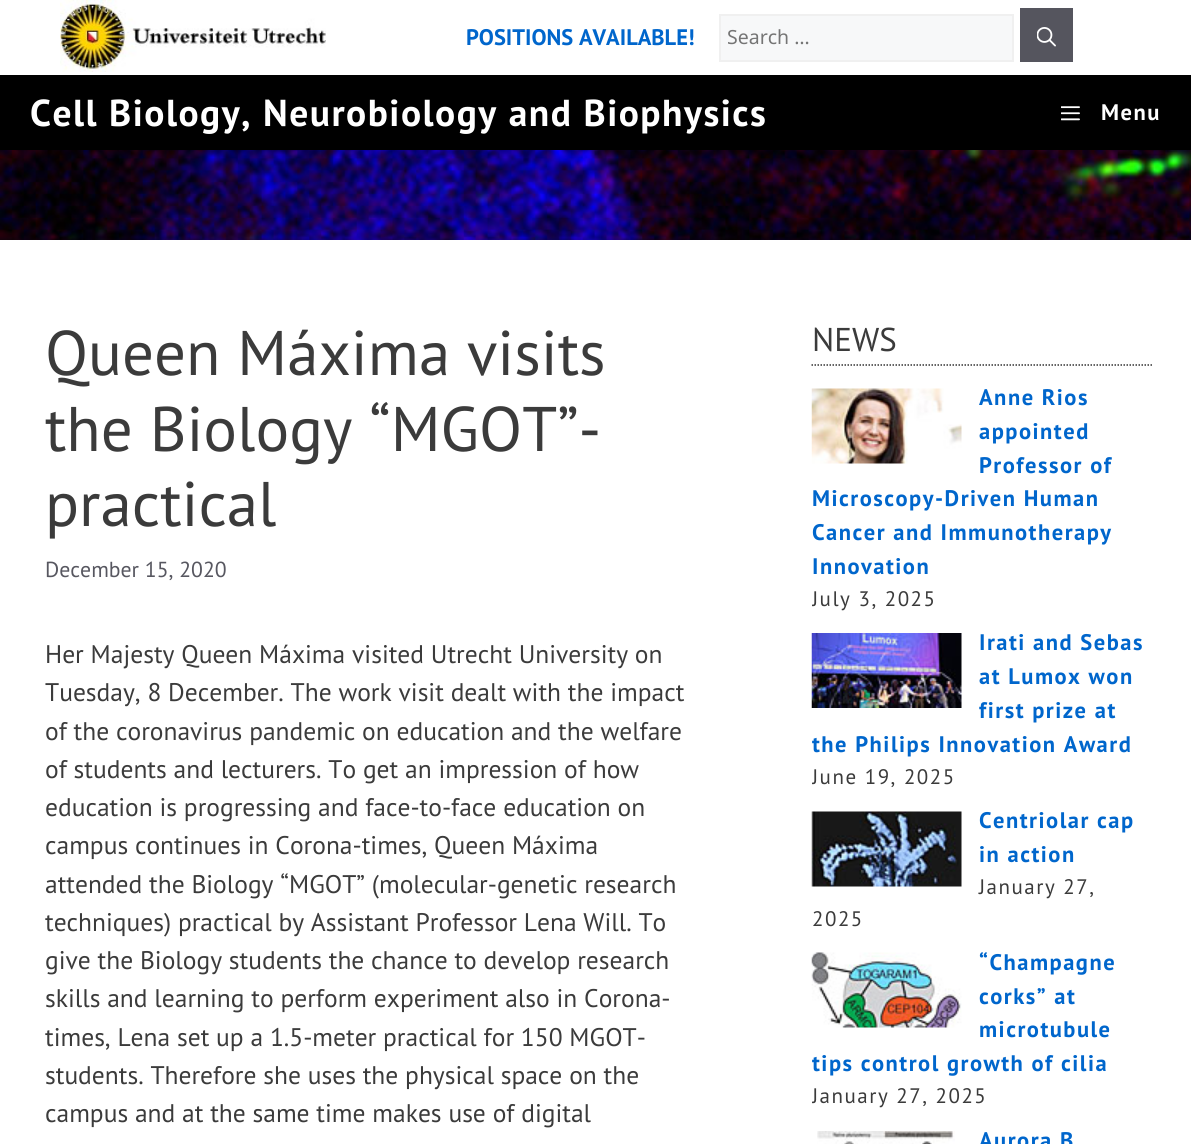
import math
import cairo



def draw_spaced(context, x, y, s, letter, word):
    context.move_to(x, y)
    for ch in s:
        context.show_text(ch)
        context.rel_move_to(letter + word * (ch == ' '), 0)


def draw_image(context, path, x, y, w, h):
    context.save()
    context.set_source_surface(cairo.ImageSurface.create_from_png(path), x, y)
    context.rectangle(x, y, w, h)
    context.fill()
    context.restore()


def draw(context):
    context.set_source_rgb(1, 1, 1)
    context.paint()
    draw_image(context, "images/1.png", 60, 0, 266, 72)
    context.set_source_rgb(247 / 255, 248 / 255, 249 / 255)
    context.rectangle(720, 15, 293, 46)
    context.fill_preserve()
    context.set_source_rgb(240 / 255, 240 / 255, 240 / 255)
    context.stroke()
    context.set_source_rgb(85 / 255, 85 / 255, 94 / 255)
    context.rectangle(1020, 8, 53, 54)
    context.fill()
    draw_image(context, "images/2.png", 1037, 27, 19, 20)
    context.set_source_rgb(0, 0, 0)
    context.rectangle(0, 75, 1191, 75)
    context.fill()
    draw_image(context, "images/3.png", 1061, 106, 19, 15)
    draw_image(context, "images/4.png", 0, 150, 1191, 90)
    context.new_path()
    context.move_to(811.5, 365)
    context.line_to(1153.5, 365)
    context.set_source_rgb(51 / 255, 51 / 255, 51 / 255)
    context.set_line_width(1.5)
    context.set_dash([1.5, 1.5])
    context.stroke()
    draw_image(context, "images/5.png", 811, 388, 151, 76)
    draw_image(context, "images/6.png", 811, 633, 151, 75)
    draw_image(context, "images/7.png", 811, 811, 151, 76)
    draw_image(context, "images/8.png", 811, 952, 151, 76)
    draw_image(context, "images/9.png", 817, 1131, 138, 13)
    context.select_font_face("PT Sans", cairo.FontSlant.NORMAL, cairo.FontWeight.BOLD)
    context.set_font_size(22.5)
    context.set_source_rgb(0, 102 / 255, 204 / 255)
    context.move_to(466, 45)
    context.show_text("POSITIONS AVAILABLE!")
    context.select_font_face("Noto Sans")
    context.set_font_size(19.5)
    context.set_source_rgb(117 / 255, 117 / 255, 117 / 255)
    context.move_to(727, 44)
    context.show_text("Search …")
    context.select_font_face("PT Sans", cairo.FontSlant.NORMAL, cairo.FontWeight.BOLD)
    context.set_font_size(37.5)
    context.set_source_rgb(1, 1, 1)
    draw_spaced(context, 30, 126, "Cell Biology, Neurobiology and Biophysics", 1.5, 0)
    context.set_font_size(22.5)
    draw_spaced(context, 1101, 120, "Menu", 1.5, 0)
    context.select_font_face("PT Sans")
    context.set_font_size(63)
    context.set_source_rgb(59 / 255, 59 / 255, 59 / 255)
    context.move_to(45, 375)
    context.show_text("Queen Máxima visits")
    context.move_to(45, 451)
    context.show_text("the Biology “MGOT”-")
    context.move_to(45, 526)
    context.show_text("practical")
    context.set_font_size(21.75)
    context.set_source_rgb(87 / 255, 87 / 255, 96 / 255)
    context.move_to(45, 577)
    context.show_text("December 15, 2020")
    context.set_font_size(25.5)
    context.set_source_rgb(59 / 255, 59 / 255, 59 / 255)
    context.move_to(45, 663)
    context.show_text("Her Majesty Queen Máxima visited Utrecht University on")
    context.move_to(45, 701)
    context.show_text("Tuesday, 8 December. The work visit dealt with the impact")
    context.move_to(45, 740)
    context.show_text("of the coronavirus pandemic on education and the welfare")
    context.move_to(45, 778)
    context.show_text("of students and lecturers. To get an impression of how")
    context.move_to(45, 816)
    context.show_text("education is progressing and face-to-face education on")
    context.move_to(45, 854)
    context.show_text("campus continues in Corona-times, Queen Máxima")
    context.move_to(45, 893)
    context.show_text("attended the Biology “MGOT” (molecular-genetic research")
    context.move_to(45, 931)
    context.show_text("techniques) practical by Assistant Professor Lena Will. To")
    context.move_to(45, 969)
    context.show_text("give the Biology students the chance to develop research")
    context.move_to(45, 1007)
    context.show_text("skills and learning to perform experiment also in Corona-")
    context.move_to(45, 1046)
    context.show_text("times, Lena set up a 1.5-meter practical for 150 MGOT-")
    context.move_to(45, 1084)
    context.show_text("students. Therefore she uses the physical space on the")
    context.move_to(45, 1122)
    context.show_text("campus and at the same time makes use of digital")
    context.set_font_size(33)
    context.move_to(812, 351)
    context.show_text("NEWS")
    context.select_font_face("PT Sans", cairo.FontSlant.NORMAL, cairo.FontWeight.BOLD)
    context.set_font_size(22.5)
    context.set_source_rgb(0, 102 / 255, 204 / 255)
    draw_spaced(context, 979, 405, "Anne Rios", 1.5, 0)
    draw_spaced(context, 979, 439, "appointed", 1.5, 0)
    draw_spaced(context, 979, 473, "Professor of", 1.5, 0)
    draw_spaced(context, 812, 506, "Microscopy-Driven Human", 1.5, 0)
    draw_spaced(context, 812, 540, "Cancer and Immunotherapy", 1.5, 0)
    draw_spaced(context, 812, 574, "Innovation", 1.5, 0)
    context.save()
    context.rectangle(812, 381, 342, 234)
    context.clip()
    context.select_font_face("PT Sans")
    context.set_font_size(21)
    context.set_source_rgb(59 / 255, 59 / 255, 59 / 255)
    draw_spaced(context, 812, 606, "July 3, 2025", 1.5, 0)
    context.restore()
    draw_spaced(context, 979, 650, "Irati and Sebas", 1.5, 0)
    draw_spaced(context, 979, 684, "at Lumox won", 1.5, 0)
    draw_spaced(context, 979, 718, "first prize at", 1.5, 0)
    context.save()
    context.rectangle(812, 627, 342, 167)
    context.clip()
    draw_spaced(context, 812, 752, "the Philips Innovation Award", 1.5, 0)
    context.select_font_face("PT Sans")
    context.set_font_size(21)
    context.set_source_rgb(59 / 255, 59 / 255, 59 / 255)
    draw_spaced(context, 812, 784, "June 19, 2025", 1.5, 0)
    context.restore()
    draw_spaced(context, 979, 828, "Centriolar cap", 1.5, 0)
    draw_spaced(context, 979, 862, "in action", 1.5, 0)
    context.select_font_face("PT Sans")
    context.set_font_size(21)
    context.set_source_rgb(59 / 255, 59 / 255, 59 / 255)
    draw_spaced(context, 979, 894, "January 27,", 1.5, 0)
    draw_spaced(context, 812, 926, "2025", 1.5, 0)
    context.select_font_face("PT Sans", cairo.FontSlant.NORMAL, cairo.FontWeight.BOLD)
    context.set_font_size(22.5)
    context.set_source_rgb(0, 102 / 255, 204 / 255)
    draw_spaced(context, 979, 970, "“Champagne", 1.5, 0)
    draw_spaced(context, 979, 1004, "corks” at", 1.5, 0)
    draw_spaced(context, 979, 1037, "microtubule", 1.5, 0)
    context.save()
    context.rectangle(812, 947, 342, 166)
    context.clip()
    draw_spaced(context, 812, 1071, "tips control growth of cilia", 1.5, 0)
    context.select_font_face("PT Sans")
    context.set_font_size(21)
    context.set_source_rgb(59 / 255, 59 / 255, 59 / 255)
    draw_spaced(context, 812, 1103, "January 27, 2025", 1.5, 0)
    context.restore()
    draw_spaced(context, 979, 1148, "Aurora B", 1.5, 0)


surface = cairo.ImageSurface(cairo.Format.RGB24, 1191, 1144)
context = cairo.Context(surface)
options = cairo.FontOptions()
options.set_hint_metrics(cairo.HintMetrics.OFF)
options.set_hint_style(cairo.HintStyle.NONE)
context.set_font_options(options)
context.set_miter_limit(4)
draw(context)
surface.write_to_png("out.png")
